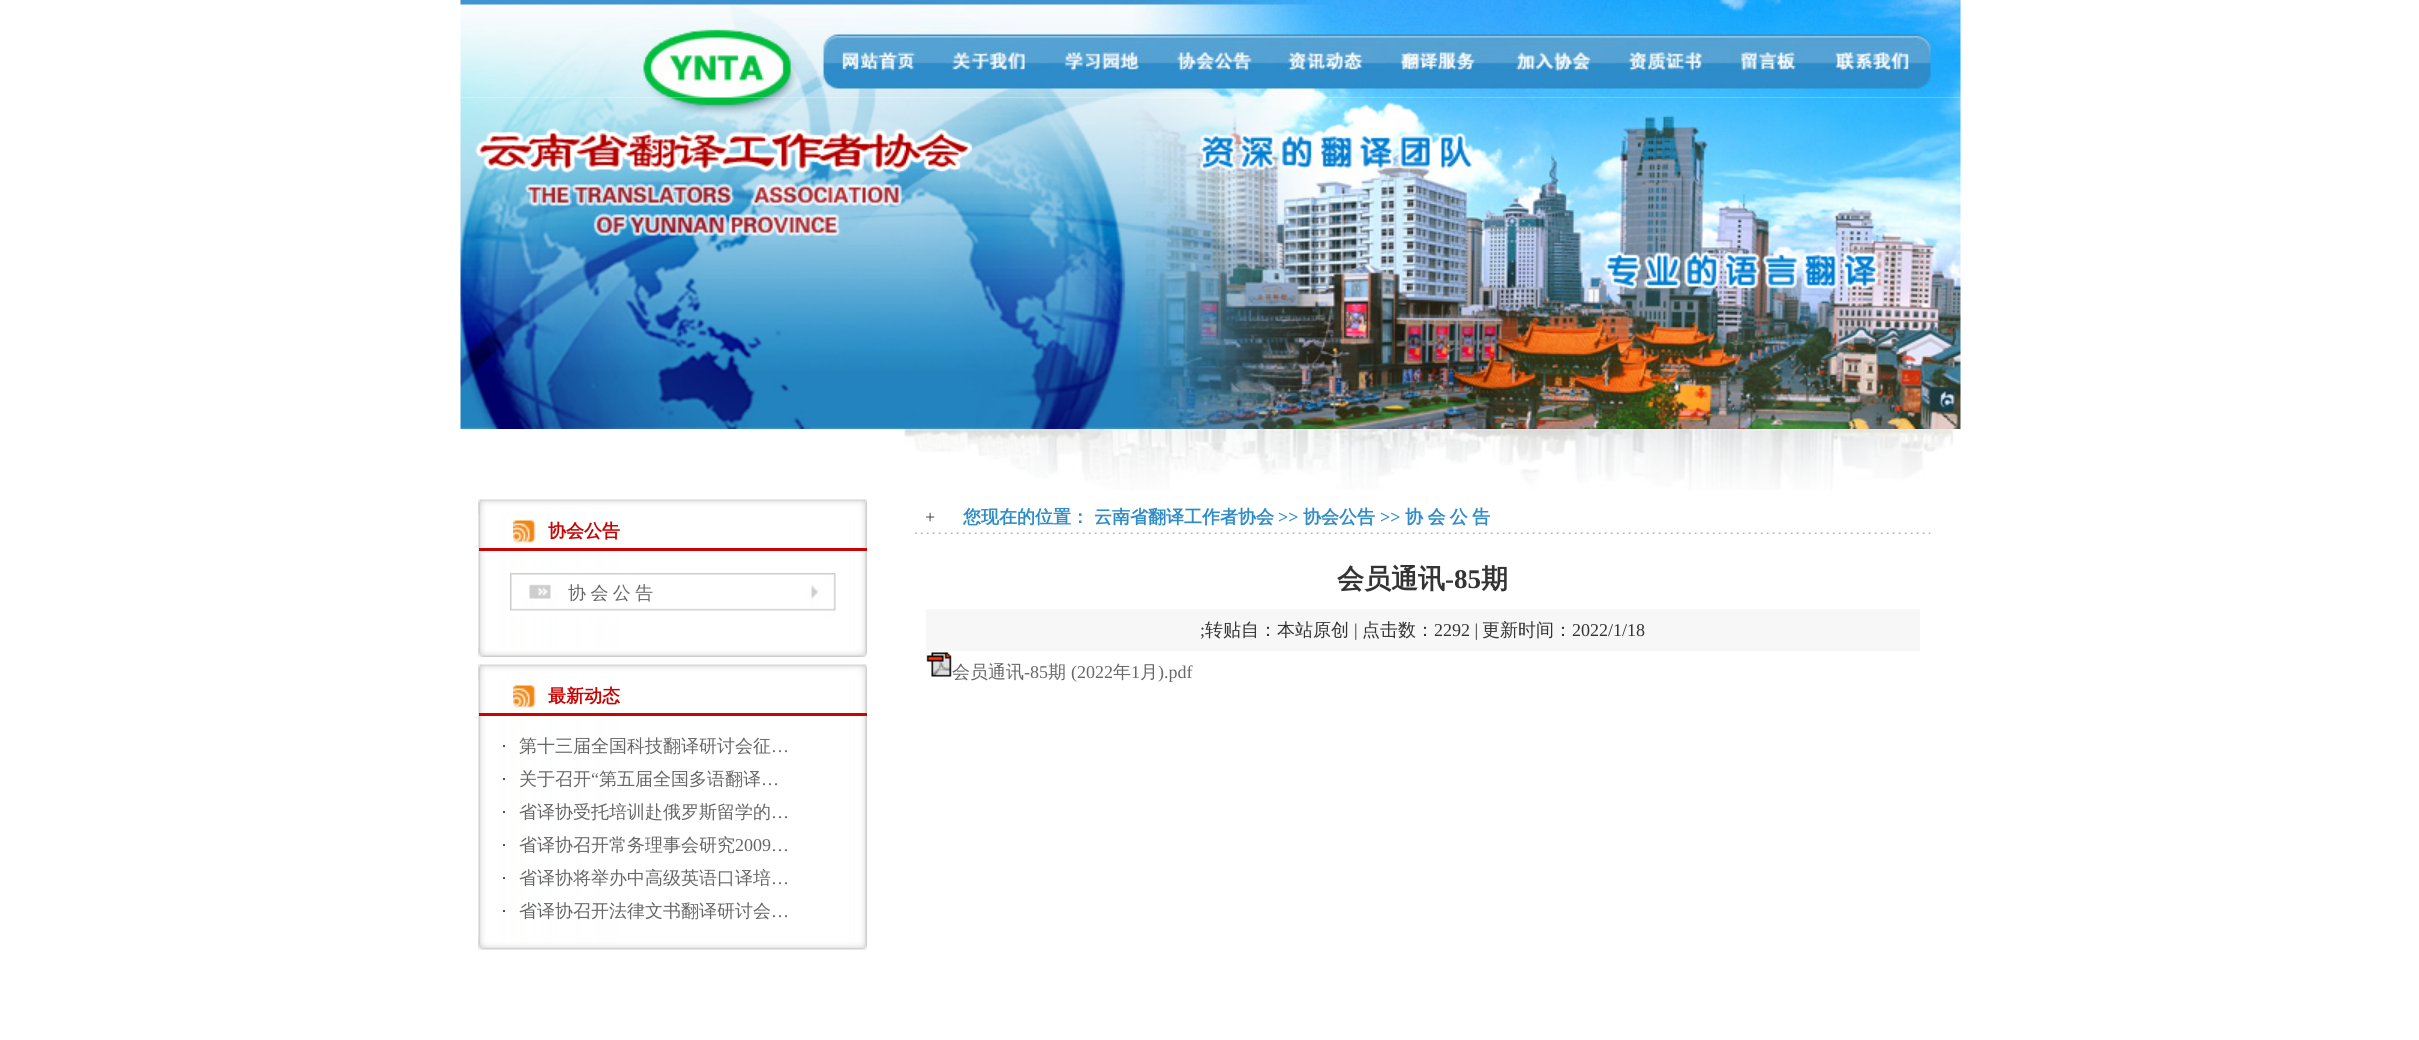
import math
import cairo



def draw_spaced(context, x, y, s, letter, word):
    context.move_to(x, y)
    for ch in s:
        context.show_text(ch)
        context.rel_move_to(letter + word * (ch == ' '), 0)


def draw_image(context, path, x, y, w, h):
    context.save()
    context.set_source_surface(cairo.ImageSurface.create_from_png(path), x, y)
    context.rectangle(x, y, w, h)
    context.fill()
    context.restore()


def draw(context):
    context.set_source_rgb(1, 1, 1)
    context.paint()
    draw_image(context, "images/1.png", 460, 0, 446, 98)
    draw_image(context, "images/2.png", 906, 0, 1055, 98)
    draw_image(context, "images/3.png", 460, 97, 446, 332)
    draw_image(context, "images/4.png", 906, 97, 1055, 332)
    draw_image(context, "images/5.png", 904, 429, 1050, 61)
    draw_image(context, "images/6.png", 478, 499, 389, 158)
    draw_image(context, "images/7.png", 478, 499, 389, 16)
    draw_image(context, "images/8.png", 513, 520, 23, 23)
    context.set_source_rgb(199 / 255, 5 / 255, 5 / 255)
    context.rectangle(479, 548, 388, 3)
    context.fill()
    draw_image(context, "images/9.png", 510, 573, 326, 45)
    draw_image(context, "images/10.png", 478, 648, 389, 9)
    draw_image(context, "images/11.png", 478, 664, 389, 286)
    draw_image(context, "images/7.png", 478, 664, 389, 16)
    draw_image(context, "images/8.png", 513, 685, 23, 23)
    context.rectangle(479, 713, 388, 3)
    context.fill()
    draw_image(context, "images/12.png", 478, 940, 389, 10)
    draw_image(context, "images/13.png", 915, 532, 1016, 2)
    context.set_source_rgb(247 / 255, 247 / 255, 247 / 255)
    context.rectangle(926, 609, 994, 42)
    context.fill()
    draw_image(context, "images/14.png", 926, 652, 26, 25)
    context.select_font_face("WenQuanYi Zen Hei", cairo.FontSlant.NORMAL, cairo.FontWeight.BOLD)
    context.set_font_size(18)
    context.set_source_rgb(199 / 255, 5 / 255, 5 / 255)
    context.move_to(548, 537)
    context.show_text("协会公告")
    context.select_font_face("WenQuanYi Zen Hei Medium")
    context.set_source_rgb(102 / 255, 102 / 255, 102 / 255)
    draw_spaced(context, 568, 599, "协 会 公 告", 0, -1)
    context.select_font_face("WenQuanYi Zen Hei", cairo.FontSlant.NORMAL, cairo.FontWeight.BOLD)
    context.set_source_rgb(199 / 255, 5 / 255, 5 / 255)
    context.move_to(548, 702)
    context.show_text("最新动态")
    context.select_font_face("Liberation Serif")
    context.set_source_rgb(51 / 255, 51 / 255, 51 / 255)
    context.move_to(501, 752)
    context.show_text("·")
    context.select_font_face("WenQuanYi Zen Hei Medium")
    context.set_source_rgb(102 / 255, 102 / 255, 102 / 255)
    context.move_to(519, 752)
    context.show_text("第十三届全国科技翻译研讨会征")
    context.select_font_face("Liberation Serif")
    context.move_to(771, 752)
    context.show_text("…")
    context.set_source_rgb(51 / 255, 51 / 255, 51 / 255)
    context.move_to(501, 785)
    context.show_text("·")
    context.select_font_face("WenQuanYi Zen Hei Medium")
    context.set_source_rgb(102 / 255, 102 / 255, 102 / 255)
    context.move_to(519, 785)
    context.show_text("关于召开")
    context.select_font_face("Liberation Serif")
    context.move_to(591, 785)
    context.show_text("“")
    context.select_font_face("WenQuanYi Zen Hei Medium")
    context.move_to(599, 785)
    context.show_text("第五届全国多语翻译")
    context.select_font_face("Liberation Serif")
    context.move_to(761, 785)
    context.show_text("…")
    context.set_source_rgb(51 / 255, 51 / 255, 51 / 255)
    context.move_to(501, 818)
    context.show_text("·")
    context.select_font_face("WenQuanYi Zen Hei Medium")
    context.set_source_rgb(102 / 255, 102 / 255, 102 / 255)
    context.move_to(519, 818)
    context.show_text("省译协受托培训赴俄罗斯留学的")
    context.select_font_face("Liberation Serif")
    context.move_to(771, 818)
    context.show_text("…")
    context.set_source_rgb(51 / 255, 51 / 255, 51 / 255)
    context.move_to(501, 851)
    context.show_text("·")
    context.select_font_face("WenQuanYi Zen Hei Medium")
    context.set_source_rgb(102 / 255, 102 / 255, 102 / 255)
    context.move_to(519, 851)
    context.show_text("省译协召开常务理事会研究")
    context.select_font_face("Liberation Serif")
    context.move_to(735, 851)
    context.show_text("2009…")
    context.set_source_rgb(51 / 255, 51 / 255, 51 / 255)
    context.move_to(501, 884)
    context.show_text("·")
    context.select_font_face("WenQuanYi Zen Hei Medium")
    context.set_source_rgb(102 / 255, 102 / 255, 102 / 255)
    context.move_to(519, 884)
    context.show_text("省译协将举办中高级英语口译培")
    context.select_font_face("Liberation Serif")
    context.move_to(771, 884)
    context.show_text("…")
    context.set_source_rgb(51 / 255, 51 / 255, 51 / 255)
    context.move_to(501, 917)
    context.show_text("·")
    context.select_font_face("WenQuanYi Zen Hei Medium")
    context.set_source_rgb(102 / 255, 102 / 255, 102 / 255)
    context.move_to(519, 917)
    context.show_text("省译协召开法律文书翻译研讨会")
    context.select_font_face("Liberation Serif")
    context.move_to(771, 917)
    context.show_text("…")
    context.set_source_rgb(51 / 255, 51 / 255, 51 / 255)
    context.move_to(925, 523)
    context.show_text("+")
    context.select_font_face("WenQuanYi Zen Hei", cairo.FontSlant.NORMAL, cairo.FontWeight.BOLD)
    context.set_source_rgb(47 / 255, 140 / 255, 199 / 255)
    context.move_to(963, 523)
    context.show_text("您现在的位置：")
    context.move_to(1094, 523)
    context.show_text("云南省翻译工作者协会")
    context.select_font_face("Liberation Serif", cairo.FontSlant.NORMAL, cairo.FontWeight.BOLD)
    context.move_to(1278, 523)
    context.show_text(">>")
    context.select_font_face("WenQuanYi Zen Hei", cairo.FontSlant.NORMAL, cairo.FontWeight.BOLD)
    context.move_to(1303, 523)
    context.show_text("协会公告")
    context.select_font_face("Liberation Serif", cairo.FontSlant.NORMAL, cairo.FontWeight.BOLD)
    context.move_to(1380, 523)
    context.show_text(">>")
    context.select_font_face("WenQuanYi Zen Hei", cairo.FontSlant.NORMAL, cairo.FontWeight.BOLD)
    draw_spaced(context, 1405, 523, "协 会 公 告", 0, -1)
    context.set_font_size(27)
    context.set_source_rgb(51 / 255, 51 / 255, 51 / 255)
    context.move_to(1337, 588)
    context.show_text("会员通讯")
    context.select_font_face("Liberation Serif", cairo.FontSlant.NORMAL, cairo.FontWeight.BOLD)
    context.move_to(1445, 588)
    context.show_text("-85")
    context.select_font_face("WenQuanYi Zen Hei", cairo.FontSlant.NORMAL, cairo.FontWeight.BOLD)
    context.move_to(1481, 588)
    context.show_text("期")
    context.select_font_face("Liberation Serif")
    context.set_font_size(18)
    context.move_to(1200, 636)
    context.show_text(";")
    context.select_font_face("WenQuanYi Zen Hei Medium")
    context.move_to(1205, 636)
    context.show_text("转贴自：本站原创")
    context.select_font_face("Liberation Serif")
    context.move_to(1354, 636)
    context.show_text("|")
    context.select_font_face("WenQuanYi Zen Hei Medium")
    context.move_to(1362, 636)
    context.show_text("点击数：")
    context.select_font_face("Liberation Serif")
    context.move_to(1434, 636)
    context.show_text("2292 |")
    context.select_font_face("WenQuanYi Zen Hei Medium")
    context.move_to(1482, 636)
    context.show_text("更新时间：")
    context.select_font_face("Liberation Serif")
    context.move_to(1572, 636)
    context.show_text("2022/1/18")
    context.select_font_face("WenQuanYi Zen Hei Medium")
    context.set_source_rgb(102 / 255, 102 / 255, 102 / 255)
    context.move_to(952, 678)
    context.show_text("会员通讯")
    context.select_font_face("Liberation Serif")
    context.move_to(1024, 678)
    context.show_text("-85")
    context.select_font_face("WenQuanYi Zen Hei Medium")
    context.move_to(1048, 678)
    context.show_text("期")
    context.select_font_face("Liberation Serif")
    context.move_to(1071, 678)
    context.show_text("(2022")
    context.select_font_face("WenQuanYi Zen Hei Medium")
    context.move_to(1113, 678)
    context.show_text("年")
    context.select_font_face("Liberation Serif")
    context.move_to(1131, 678)
    context.show_text("1")
    context.select_font_face("WenQuanYi Zen Hei Medium")
    context.move_to(1140, 678)
    context.show_text("月")
    context.select_font_face("Liberation Serif")
    context.move_to(1158, 678)
    context.show_text(").pdf")


surface = cairo.ImageSurface(cairo.Format.RGB24, 2419, 1040)
context = cairo.Context(surface)
options = cairo.FontOptions()
options.set_hint_metrics(cairo.HintMetrics.OFF)
options.set_hint_style(cairo.HintStyle.NONE)
context.set_font_options(options)
context.set_miter_limit(4)
draw(context)
surface.write_to_png("out.png")
